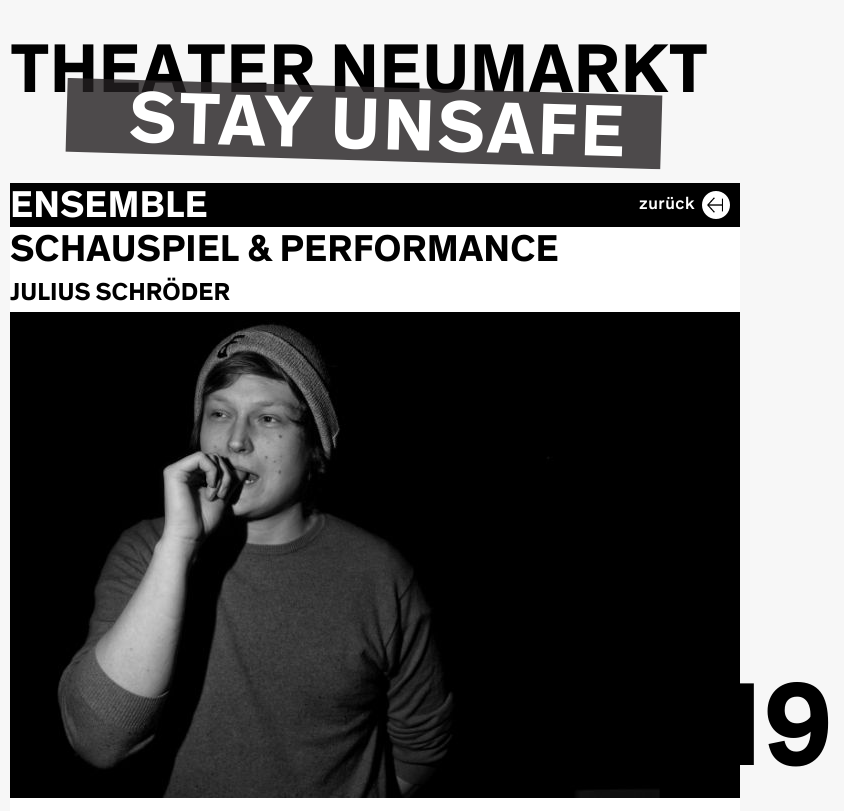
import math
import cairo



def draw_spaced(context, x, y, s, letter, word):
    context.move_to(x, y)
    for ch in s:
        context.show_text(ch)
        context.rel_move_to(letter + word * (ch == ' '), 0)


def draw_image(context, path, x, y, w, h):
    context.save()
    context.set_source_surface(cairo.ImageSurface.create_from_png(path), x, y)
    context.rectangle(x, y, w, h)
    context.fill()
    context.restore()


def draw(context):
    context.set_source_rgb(247 / 255, 247 / 255, 247 / 255)
    context.paint()
    context.set_source_rgb(0, 0, 0)
    context.rectangle(10, 183, 730, 44)
    context.fill()
    context.set_source_rgb(1, 1, 1)
    context.arc(716, 205, 14, 0, 2 * math.pi)
    context.fill()
    draw_image(context, "images/2.png", 707, 197, 16, 16)
    context.select_font_face("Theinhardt", cairo.FontSlant.NORMAL, cairo.FontWeight.BOLD)
    context.set_font_size(70)
    context.set_source_rgb(0, 0, 0)
    context.move_to(10, 92)
    context.show_text("THEATER NEUMARKT")
    draw_image(context, "images/1.png", 65, 78, 598, 92)
    context.set_font_size(38)
    context.set_source_rgb(1, 1, 1)
    context.move_to(10, 217)
    context.show_text("ENSEMBLE")
    context.select_font_face("Theinhardt Medium")
    context.set_font_size(18)
    draw_spaced(context, 639, 209, "zurück", 0.5, 0)
    context.select_font_face("Theinhardt", cairo.FontSlant.NORMAL, cairo.FontWeight.BOLD)
    context.set_font_size(120)
    context.set_source_rgb(0, 0, 0)
    context.move_to(711, 765)
    context.show_text("19")
    context.set_source_rgb(1, 1, 1)
    context.rectangle(10, 227, 730, 584)
    context.fill()
    context.set_source_rgb(0, 0, 0)
    context.rectangle(10, 312, 730, 486)
    context.fill()
    draw_image(context, "images/3.png", 57, 320, 603, 478)
    context.set_font_size(25)
    context.move_to(10, 300)
    context.show_text("JULIUS SCHRÖDER")
    context.set_font_size(38)
    context.move_to(10, 261)
    context.show_text("SCHAUSPIEL & PERFORMANCE")


surface = cairo.ImageSurface(cairo.Format.RGB24, 844, 811)
context = cairo.Context(surface)
options = cairo.FontOptions()
options.set_hint_metrics(cairo.HintMetrics.OFF)
options.set_hint_style(cairo.HintStyle.NONE)
context.set_font_options(options)
context.set_miter_limit(4)
draw(context)
surface.write_to_png("out.png")
